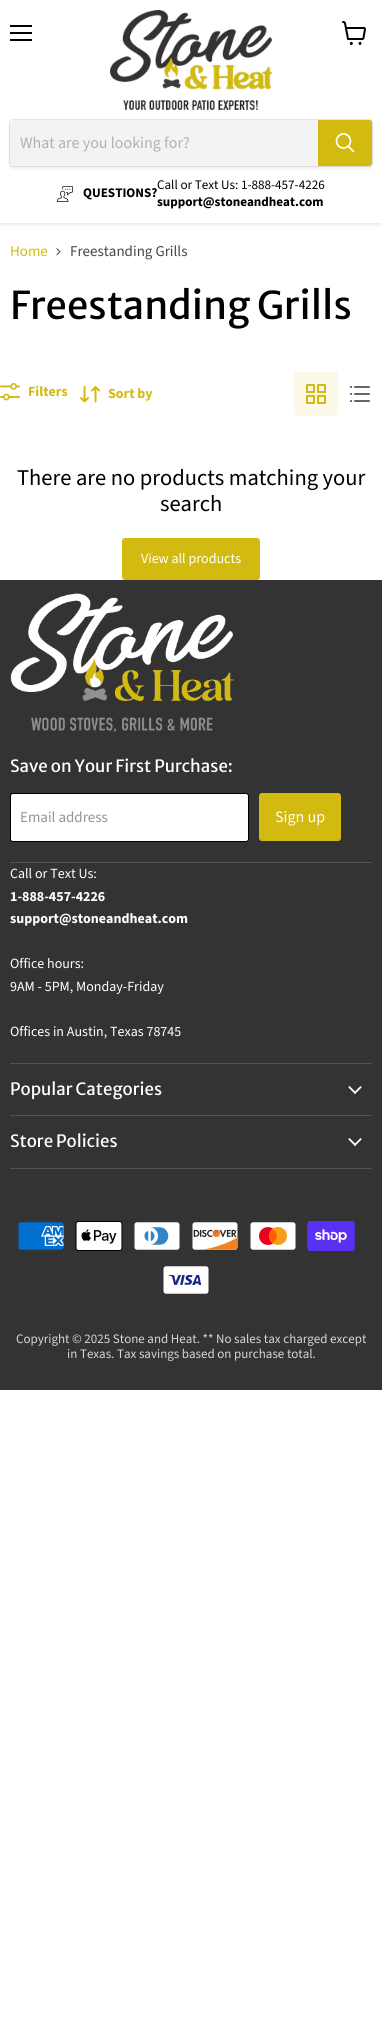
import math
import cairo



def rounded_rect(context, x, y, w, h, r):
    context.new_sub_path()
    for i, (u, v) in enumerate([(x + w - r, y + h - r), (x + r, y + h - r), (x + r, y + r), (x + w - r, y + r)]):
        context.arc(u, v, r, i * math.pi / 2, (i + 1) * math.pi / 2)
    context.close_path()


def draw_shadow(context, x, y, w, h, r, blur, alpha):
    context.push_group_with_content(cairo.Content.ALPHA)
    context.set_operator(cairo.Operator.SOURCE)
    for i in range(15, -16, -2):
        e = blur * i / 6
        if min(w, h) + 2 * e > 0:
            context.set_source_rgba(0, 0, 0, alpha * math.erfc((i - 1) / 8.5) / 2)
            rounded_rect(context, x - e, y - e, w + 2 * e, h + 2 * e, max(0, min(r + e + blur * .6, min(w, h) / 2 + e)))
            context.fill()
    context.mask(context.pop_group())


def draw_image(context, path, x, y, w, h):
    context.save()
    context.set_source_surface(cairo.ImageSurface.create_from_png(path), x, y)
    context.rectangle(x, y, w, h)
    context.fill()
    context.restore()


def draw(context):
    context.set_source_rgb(1, 1, 1)
    context.paint()
    context.save()
    context.rectangle(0, 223, 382, 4)
    context.clip()
    context.set_source_rgb(128 / 255, 128 / 255, 128 / 255)
    draw_shadow(context, 0, 1, 382, 223, 0, 2, 0.25)
    context.restore()
    context.set_source_rgb(0, 0, 0)
    context.rectangle(10, 25, 22, 2)
    context.fill()
    context.rectangle(10, 32, 22, 2)
    context.fill()
    context.rectangle(10, 39, 22, 2)
    context.fill()
    draw_image(context, "images/1.png", 342, 21, 24, 24)
    draw_image(context, "images/2.png", 110, 10, 162, 100)
    context.set_source_rgb(128 / 255, 128 / 255, 128 / 255)
    draw_shadow(context, 9, 121, 364, 48, 4, 1.5, 0.11)
    rounded_rect(context, 9.5, 119.5, 363, 47, 3.5)
    context.set_source_rgba(128 / 255, 128 / 255, 128 / 255, 0.2)
    context.set_line_width(1)
    context.stroke()
    context.set_source_rgb(243 / 255, 243 / 255, 243 / 255)
    context.rectangle(10, 120, 308, 46)
    context.fill()
    context.set_source_rgb(211 / 255, 186 / 255, 17 / 255)
    context.new_path()
    context.move_to(318.5, 120.5)
    context.line_to(369, 120.5)
    context.curve_to(370.5, 120.5, 371.5, 121.5, 371.5, 123)
    context.line_to(371.5, 163)
    context.curve_to(371.5, 164.5, 370.5, 165.5, 369, 165.5)
    context.line_to(318.5, 165.5)
    context.close_path()
    context.fill_preserve()
    context.stroke()
    context.new_path()
    context.move_to(353.5, 151.5)
    context.line_to(348.5, 146.5)
    context.set_source_rgb(1, 1, 1)
    context.set_line_width(1.7)
    context.set_line_cap(cairo.LineCap.ROUND)
    context.stroke()
    context.arc(343.5, 141, 7, 0, 2 * math.pi)
    context.set_line_cap(cairo.LineCap.BUTT)
    context.stroke()
    draw_image(context, "images/3.png", 57, 186, 16, 16)
    draw_image(context, "images/4.png", 56, 248, 5, 8)
    draw_image(context, "images/5.png", 0, 383, 20, 18)
    draw_image(context, "images/6.png", 80, 386, 20, 17)
    context.set_source_rgb(251 / 255, 248 / 255, 231 / 255)
    rounded_rect(context, 294, 372, 44, 44, 3)
    context.fill()
    draw_image(context, "images/7.png", 306, 384, 20, 20)
    draw_image(context, "images/8.png", 350, 386, 20, 16)
    context.set_source_rgb(211 / 255, 186 / 255, 17 / 255)
    rounded_rect(context, 122.5, 538.5, 137, 41, 2.5)
    context.fill_preserve()
    context.set_line_width(1)
    context.stroke()
    context.set_source_rgb(51 / 255, 51 / 255, 51 / 255)
    context.rectangle(0, 580, 382, 810)
    context.fill()
    context.set_source_rgb(82 / 255, 82 / 255, 82 / 255)
    context.rectangle(10, 862, 362, 1)
    context.fill()
    draw_image(context, "images/9.png", 10, 593, 224, 139)
    context.set_source_rgb(1, 1, 1)
    rounded_rect(context, 10.5, 793.5, 238, 48, 2.5)
    context.fill_preserve()
    context.set_source_rgb(0, 0, 0)
    context.stroke()
    context.set_source_rgb(211 / 255, 186 / 255, 17 / 255)
    rounded_rect(context, 259.5, 793.5, 81, 47, 2.5)
    context.fill_preserve()
    context.stroke()
    context.set_source_rgb(82 / 255, 82 / 255, 82 / 255)
    context.rectangle(10, 1063, 362, 1)
    context.fill()
    context.rectangle(10, 1115, 362, 1)
    context.fill()
    draw_image(context, "images/10.png", 348, 1086, 14, 8)
    context.rectangle(10, 1168, 362, 1)
    context.fill()
    draw_image(context, "images/10.png", 348, 1138, 14, 8)
    draw_image(context, "images/11.png", 18, 1222, 46, 28)
    draw_image(context, "images/12.png", 75, 1221, 48, 30)
    draw_image(context, "images/13.png", 134, 1222, 46, 28)
    draw_image(context, "images/14.png", 192, 1222, 46, 28)
    draw_image(context, "images/15.png", 250, 1222, 46, 28)
    draw_image(context, "images/16.png", 307, 1221, 48, 30)
    draw_image(context, "images/17.png", 163, 1266, 46, 28)
    context.select_font_face("Source Sans Pro")
    context.set_font_size(16)
    context.set_source_rgb(177 / 255, 177 / 255, 177 / 255)
    context.move_to(20, 148)
    context.show_text("What are you looking for?")
    context.select_font_face("Source Sans Pro", cairo.FontSlant.NORMAL, cairo.FontWeight.BOLD)
    context.set_font_size(13.1)
    context.set_source_rgb(0, 0, 0)
    context.move_to(83, 197)
    context.show_text("QUESTIONS?")
    context.select_font_face("Source Sans Pro")
    context.move_to(157, 189)
    context.show_text("Call or Text Us: 1-888-457-4226")
    context.select_font_face("Source Sans Pro", cairo.FontSlant.NORMAL, cairo.FontWeight.BOLD)
    context.move_to(157, 206)
    context.show_text("support@stoneandheat.com")
    context.select_font_face("Source Sans Pro")
    context.set_font_size(15)
    context.set_source_rgb(211 / 255, 186 / 255, 17 / 255)
    context.move_to(10, 256)
    context.show_text("Home")
    context.set_source_rgb(70 / 255, 70 / 255, 70 / 255)
    context.move_to(70, 256)
    context.show_text("Freestanding Grills")
    context.select_font_face("Merriweather Sans")
    context.set_font_size(38.25)
    context.set_source_rgb(0, 0, 0)
    context.move_to(10, 319)
    context.show_text("Freestanding Grills")
    context.select_font_face("Source Sans Pro", cairo.FontSlant.NORMAL, cairo.FontWeight.BOLD)
    context.set_font_size(14)
    context.set_source_rgb(211 / 255, 186 / 255, 17 / 255)
    context.move_to(28, 396)
    context.show_text("Filters")
    context.move_to(108, 398)
    context.show_text("Sort by")
    context.select_font_face("Source Sans Pro")
    context.set_font_size(22.5)
    context.set_source_rgb(0, 0, 0)
    context.move_to(17, 485)
    context.show_text("There are no products matching your")
    context.move_to(160, 511)
    context.show_text("search")
    context.set_font_size(14)
    context.set_source_rgb(1, 1, 1)
    context.move_to(141, 563)
    context.show_text("View all products")
    context.select_font_face("Merriweather Sans")
    context.set_font_size(16.9)
    context.move_to(10, 772)
    context.show_text("Save on Your First Purchase:")
    context.select_font_face("Source Sans Pro")
    context.set_font_size(15)
    context.set_source_rgb(148 / 255, 148 / 255, 148 / 255)
    context.move_to(20, 822)
    context.show_text("Email address")
    context.set_font_size(16)
    context.set_source_rgb(1, 1, 1)
    context.move_to(275, 822)
    context.show_text("Sign up")
    context.set_font_size(14)
    context.move_to(10, 878)
    context.show_text("Call or Text Us:")
    context.select_font_face("Source Sans Pro", cairo.FontSlant.NORMAL, cairo.FontWeight.BOLD)
    context.move_to(10, 901)
    context.show_text("1-888-457-4226")
    context.move_to(10, 923)
    context.show_text("support@stoneandheat.com")
    context.select_font_face("Source Sans Pro")
    context.move_to(10, 968)
    context.show_text("Office hours:")
    context.move_to(10, 991)
    context.show_text("9AM - 5PM, Monday-Friday")
    context.move_to(10, 1036)
    context.show_text("Offices in Austin, Texas 78745")
    context.select_font_face("Merriweather Sans")
    context.set_font_size(16.9)
    context.move_to(10, 1095)
    context.show_text("Popular Categories")
    context.move_to(10, 1147)
    context.show_text("Store Policies")
    context.select_font_face("Source Sans Pro")
    context.set_font_size(13)
    context.set_source_rgb(214 / 255, 214 / 255, 214 / 255)
    context.move_to(16, 1343)
    context.show_text("Copyright © 2025 Stone and Heat. ** No sales tax charged except")
    context.move_to(67, 1358)
    context.show_text("in Texas. Tax savings based on purchase total.")


surface = cairo.ImageSurface(cairo.Format.RGB24, 382, 2036)
context = cairo.Context(surface)
options = cairo.FontOptions()
options.set_hint_metrics(cairo.HintMetrics.OFF)
options.set_hint_style(cairo.HintStyle.NONE)
context.set_font_options(options)
context.set_miter_limit(4)
draw(context)
surface.write_to_png("out.png")
